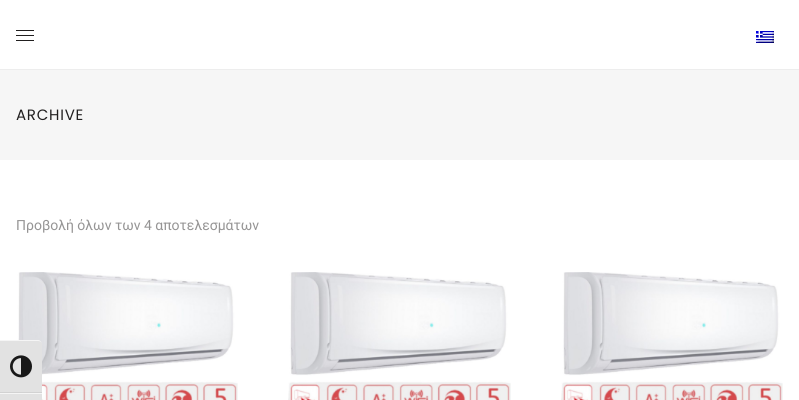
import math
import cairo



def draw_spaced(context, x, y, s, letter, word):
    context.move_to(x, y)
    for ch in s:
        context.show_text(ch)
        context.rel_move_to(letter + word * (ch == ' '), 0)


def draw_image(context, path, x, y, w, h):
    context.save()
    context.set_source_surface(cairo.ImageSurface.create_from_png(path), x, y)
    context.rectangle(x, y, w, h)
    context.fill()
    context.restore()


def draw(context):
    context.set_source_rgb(1, 1, 1)
    context.paint()
    context.set_source_rgb(237 / 255, 237 / 255, 237 / 255)
    context.rectangle(0, 69, 799, 1)
    context.fill()
    context.set_source_rgb(33 / 255, 31 / 255, 31 / 255)
    context.rectangle(16, 30, 18, 1)
    context.fill()
    context.rectangle(16, 35, 18, 1)
    context.fill()
    context.rectangle(16, 40, 18, 1)
    context.fill()
    draw_image(context, "images/1.png", 756, 31, 18, 12)
    context.set_source_rgb(246 / 255, 246 / 255, 246 / 255)
    context.rectangle(0, 70, 799, 90)
    context.fill()
    draw_image(context, "images/2.png", 16, 272, 222, 128)
    draw_image(context, "images/3.png", 288, 272, 223, 128)
    draw_image(context, "images/4.png", 561, 272, 222, 128)
    context.set_source_rgb(226 / 255, 226 / 255, 226 / 255)
    context.new_path()
    context.move_to(0, 340)
    context.line_to(38, 340)
    context.curve_to(40, 340, 42, 342, 42, 344)
    context.line_to(42, 393)
    context.line_to(0, 393)
    context.close_path()
    context.fill()
    context.set_source_rgb(245 / 255, 245 / 255, 245 / 255)
    context.new_path()
    context.move_to(0, 340)
    context.line_to(0, 341)
    context.line_to(38, 341)
    context.curve_to(40, 341, 42, 342, 42, 344)
    context.curve_to(42, 342, 40, 340, 38, 340)
    context.close_path()
    context.fill()
    context.set_source_rgb(210 / 255, 210 / 255, 210 / 255)
    context.rectangle(0, 392, 42, 1)
    context.fill()
    draw_image(context, "images/5.png", 10, 355, 22, 23)
    context.set_source_rgb(226 / 255, 226 / 255, 226 / 255)
    context.rectangle(0, 394, 42, 6)
    context.fill()
    context.set_source_rgb(245 / 255, 245 / 255, 245 / 255)
    context.rectangle(0, 393, 42, 1)
    context.fill()
    context.select_font_face("Poppins")
    context.set_font_size(15)
    context.set_source_rgb(33 / 255, 31 / 255, 31 / 255)
    draw_spaced(context, 16, 120, "ARCHIVE", 0.75, 0)
    context.select_font_face("Roboto")
    context.set_font_size(14)
    context.set_source_rgb(149 / 255, 148 / 255, 148 / 255)
    context.move_to(16, 230)
    context.show_text("Προβολή όλων των 4 αποτελεσμάτων")


surface = cairo.ImageSurface(cairo.Format.RGB24, 799, 400)
context = cairo.Context(surface)
options = cairo.FontOptions()
options.set_hint_metrics(cairo.HintMetrics.OFF)
options.set_hint_style(cairo.HintStyle.NONE)
context.set_font_options(options)
context.set_miter_limit(4)
draw(context)
surface.write_to_png("out.png")
